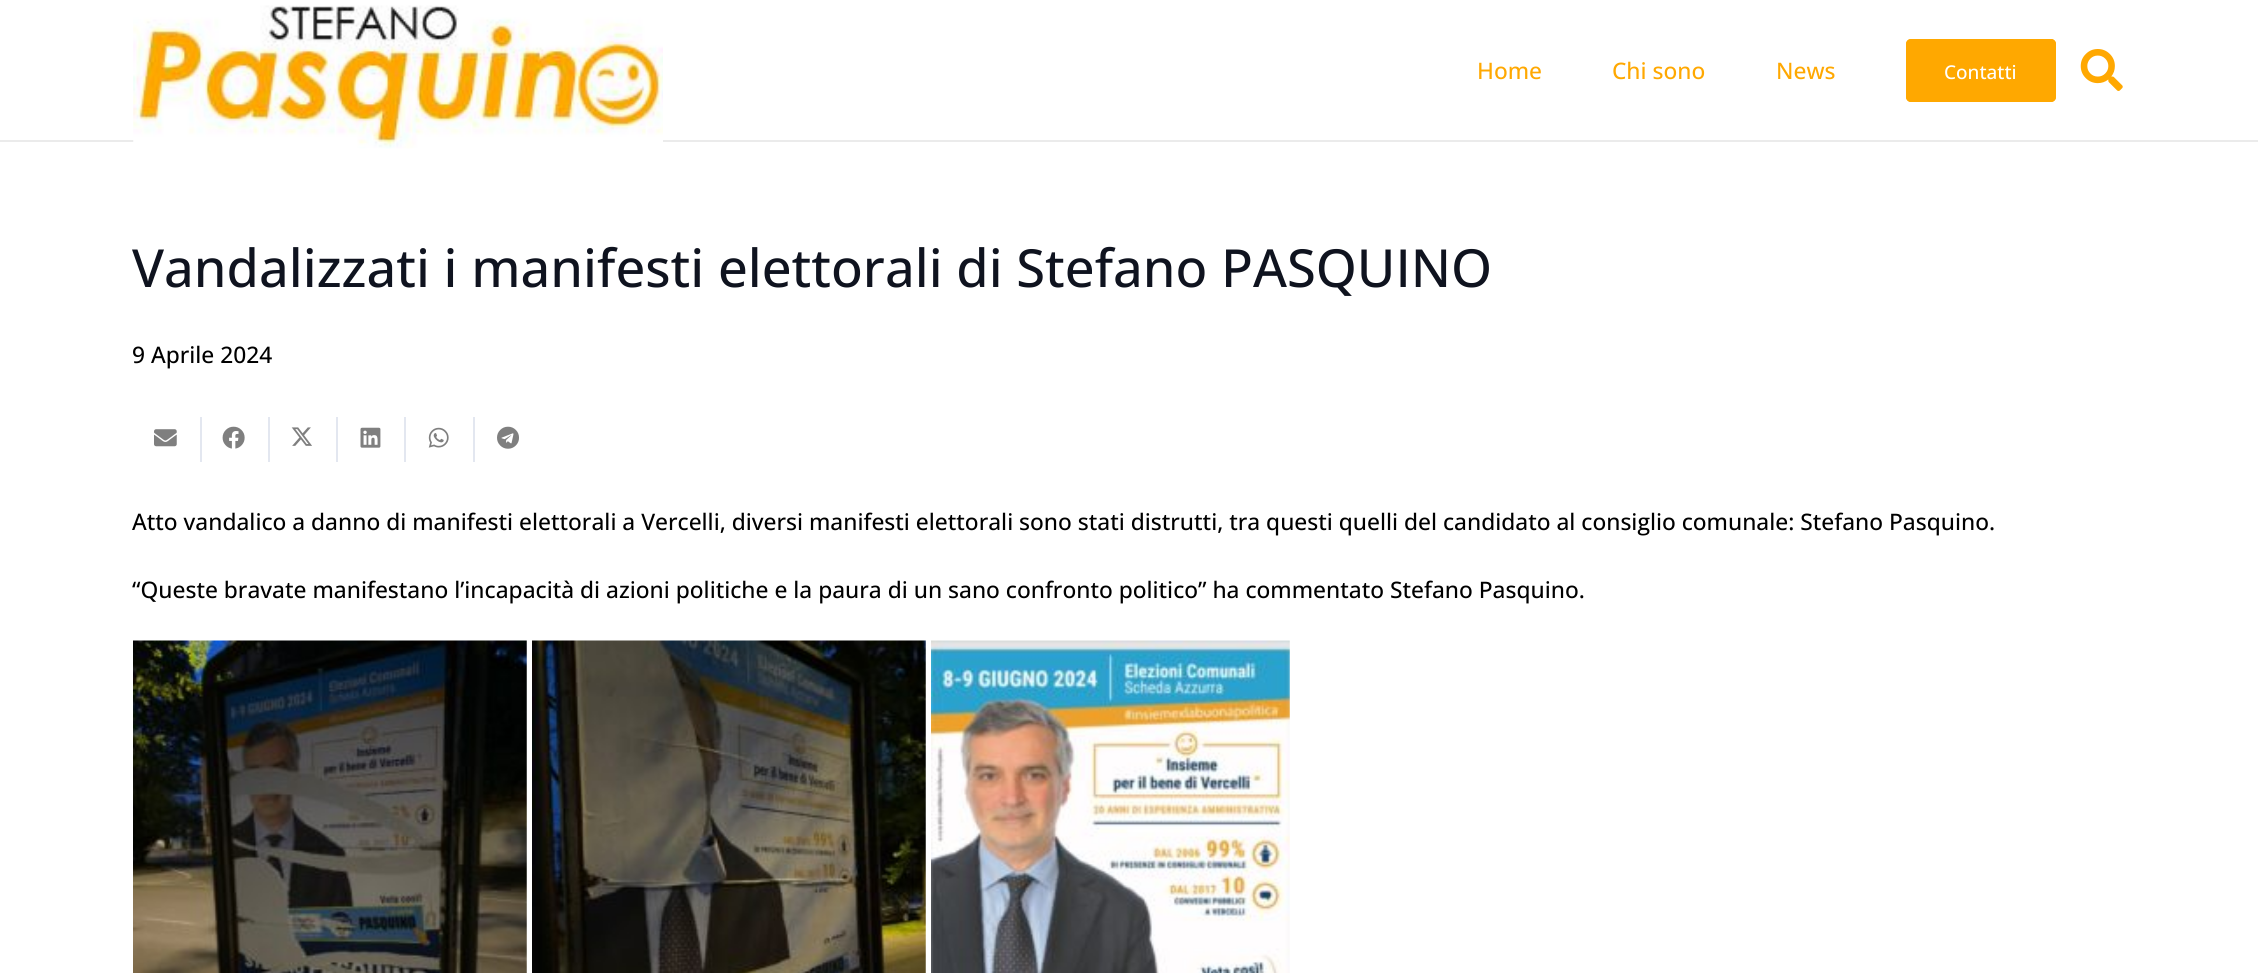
import math
import cairo



def rounded_rect(context, x, y, w, h, r):
    context.new_sub_path()
    for i, (u, v) in enumerate([(x + w - r, y + h - r), (x + r, y + h - r), (x + r, y + r), (x + w - r, y + r)]):
        context.arc(u, v, r, i * math.pi / 2, (i + 1) * math.pi / 2)
    context.close_path()


def draw_image(context, path, x, y, w, h):
    context.save()
    context.set_source_surface(cairo.ImageSurface.create_from_png(path), x, y)
    context.rectangle(x, y, w, h)
    context.fill()
    context.restore()


def draw(context):
    context.set_source_rgb(1, 1, 1)
    context.paint()
    context.set_source_rgb(235 / 255, 235 / 255, 235 / 255)
    context.rectangle(0, 140, 2258, 2)
    context.fill()
    draw_image(context, "images/1.png", 133, 5, 530, 144)
    context.set_source_rgb(1, 168 / 255, 0)
    rounded_rect(context, 1906, 39, 150, 63, 5)
    context.fill()
    rounded_rect(context, 1908, 41, 146, 59, 3)
    context.set_line_width(4)
    context.stroke()
    draw_image(context, "images/2.png", 2080, 49, 43, 42)
    context.set_source_rgb(227 / 255, 231 / 255, 240 / 255)
    context.rectangle(200, 417, 2, 45)
    context.fill()
    draw_image(context, "images/3.png", 154, 429, 23, 18)
    context.rectangle(268, 417, 2, 45)
    context.fill()
    draw_image(context, "images/4.png", 222, 426, 23, 23)
    context.rectangle(336, 417, 2, 45)
    context.fill()
    draw_image(context, "images/5.png", 291, 427, 21, 19)
    context.rectangle(404, 417, 2, 45)
    context.fill()
    draw_image(context, "images/6.png", 360, 427, 21, 21)
    context.rectangle(473, 417, 2, 45)
    context.fill()
    draw_image(context, "images/7.png", 428, 427, 21, 21)
    draw_image(context, "images/8.png", 497, 426, 22, 23)
    draw_image(context, "images/9.png", 133, 640, 394, 333)
    draw_image(context, "images/10.png", 532, 640, 394, 333)
    draw_image(context, "images/11.png", 931, 640, 359, 333)
    context.select_font_face("Open Sans Medium")
    context.set_font_size(22.75)
    context.set_source_rgb(1, 168 / 255, 1 / 255)
    context.move_to(1477, 79)
    context.show_text("Home")
    context.move_to(1612, 79)
    context.show_text("Chi sono")
    context.move_to(1776, 79)
    context.show_text("News")
    context.set_font_size(19)
    context.set_source_rgb(1, 1, 1)
    context.move_to(1944, 79)
    context.show_text("Contatti")
    context.set_font_size(52.5)
    context.set_source_rgb(15 / 255, 19 / 255, 31 / 255)
    context.move_to(132, 287)
    context.show_text("Vandalizzati i manifesti elettorali di Stefano PASQUINO")
    context.set_font_size(22.75)
    context.set_source_rgb(0, 0, 0)
    context.move_to(132, 363)
    context.show_text("9 Aprile 2024")
    context.move_to(132, 530)
    context.show_text("Atto vandalico a danno di manifesti elettorali a Vercelli, diversi manifesti elettorali sono stati distrutti, tra questi quelli del candidato al consiglio comunale: Stefano Pasquino.")
    context.move_to(132, 598)
    context.show_text("“Queste bravate manifestano l’incapacità di azioni politiche e la paura di un sano confronto politico” ha commentato Stefano Pasquino.")


surface = cairo.ImageSurface(cairo.Format.RGB24, 2258, 973)
context = cairo.Context(surface)
options = cairo.FontOptions()
options.set_hint_metrics(cairo.HintMetrics.OFF)
options.set_hint_style(cairo.HintStyle.NONE)
context.set_font_options(options)
context.set_miter_limit(4)
draw(context)
surface.write_to_png("out.png")
